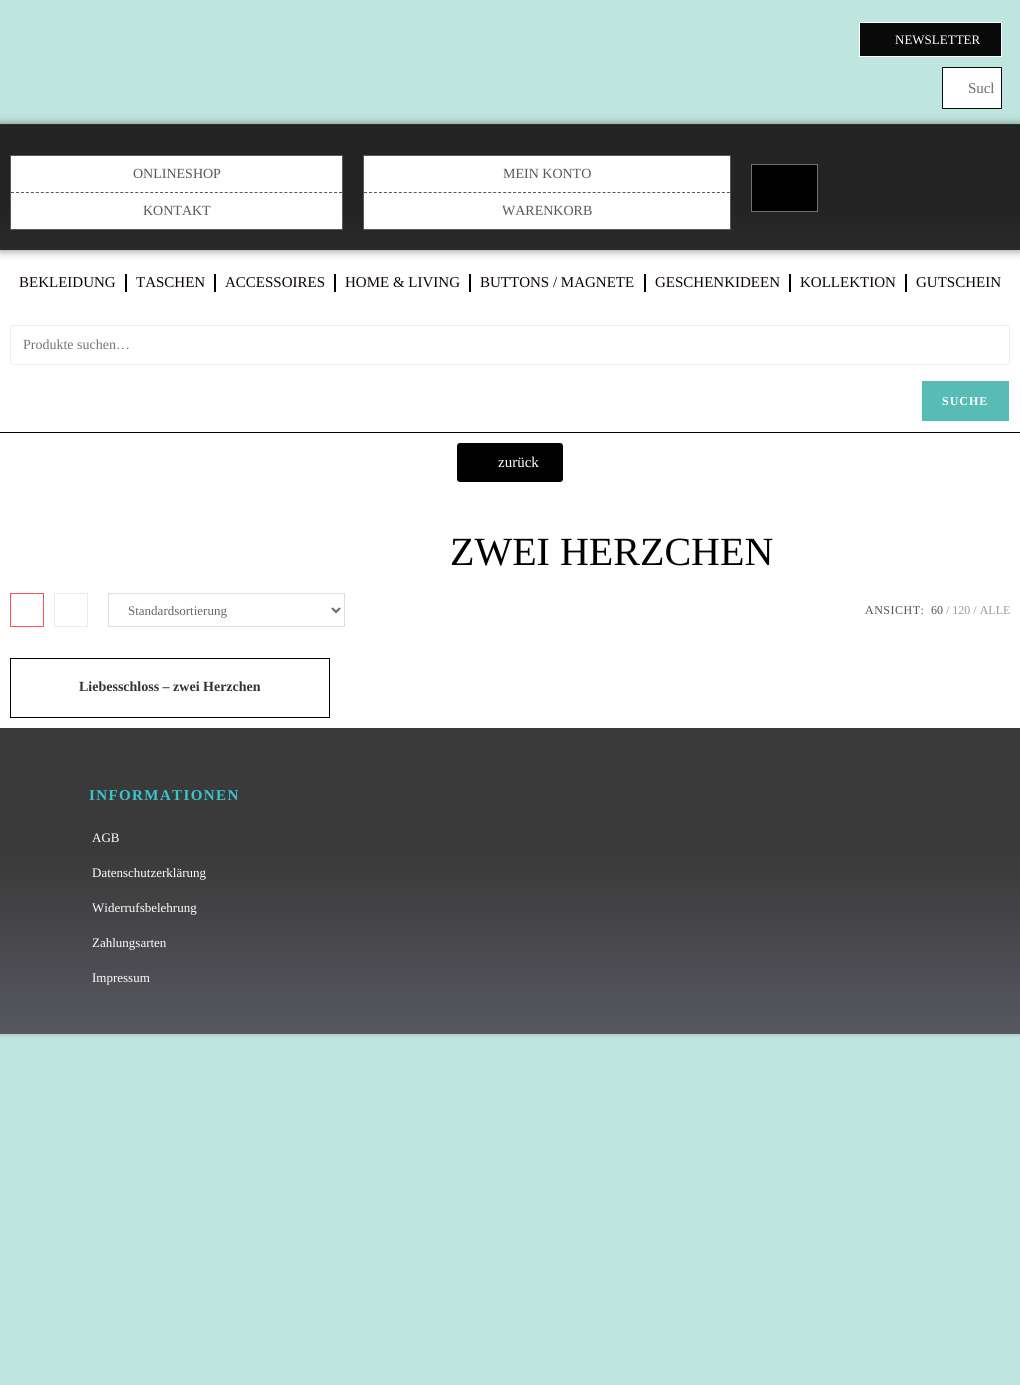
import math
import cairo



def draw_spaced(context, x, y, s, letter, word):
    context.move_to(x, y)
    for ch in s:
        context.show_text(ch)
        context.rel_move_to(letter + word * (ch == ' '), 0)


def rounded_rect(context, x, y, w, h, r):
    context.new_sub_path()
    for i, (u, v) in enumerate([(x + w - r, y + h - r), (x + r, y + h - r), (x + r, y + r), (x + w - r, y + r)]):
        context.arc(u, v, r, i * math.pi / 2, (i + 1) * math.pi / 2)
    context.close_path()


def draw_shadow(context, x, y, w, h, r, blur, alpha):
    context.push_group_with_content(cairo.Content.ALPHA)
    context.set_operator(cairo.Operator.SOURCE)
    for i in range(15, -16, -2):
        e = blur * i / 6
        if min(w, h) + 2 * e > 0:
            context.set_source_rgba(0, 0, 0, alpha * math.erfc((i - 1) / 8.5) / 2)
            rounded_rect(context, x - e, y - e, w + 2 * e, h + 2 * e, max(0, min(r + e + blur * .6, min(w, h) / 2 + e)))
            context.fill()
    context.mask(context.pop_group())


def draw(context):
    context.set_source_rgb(191 / 255, 230 / 255, 224 / 255)
    context.paint()
    context.set_source_rgb(0, 0, 0)
    draw_shadow(context, 0, 1, 1020, 1034, 0, 2, 0.15)
    context.set_source_rgb(1, 1, 1)
    context.rectangle(0, 250, 1020, 478)
    context.fill()
    context.set_source_rgb(0, 0, 0)
    context.rectangle(0, 432, 1020, 1)
    context.fill()
    context.set_source_rgb(191 / 255, 229 / 255, 223 / 255)
    context.rectangle(0, 0, 1020, 124)
    context.fill()
    context.set_source_rgb(10 / 255, 10 / 255, 10 / 255)
    context.rectangle(859.5, 22.5, 142, 34)
    context.fill_preserve()
    context.set_source_rgb(1, 1, 1)
    context.set_line_width(1)
    context.stroke()
    context.rectangle(942.5, 67.5, 59, 41)
    context.fill_preserve()
    context.set_source_rgb(10 / 255, 10 / 255, 10 / 255)
    context.stroke()
    context.set_source_rgb(59 / 255, 59 / 255, 59 / 255)
    context.rectangle(0, 124, 1020, 1)
    context.fill()
    context.set_source_rgb(0, 0, 0)
    draw_shadow(context, 0, 125, 1020, 125, 0, 5, 0.5)
    gradient = cairo.LinearGradient(510, 125, 510, 250)
    gradient.add_color_stop_rgba(0.65, 35 / 255, 35 / 255, 35 / 255, 1)
    gradient.add_color_stop_rgba(1, 43 / 255, 42 / 255, 42 / 255, 1)
    context.set_source(gradient)
    context.rectangle(0, 125, 1020, 125)
    context.fill()
    context.set_source_rgb(1, 1, 1)
    context.rectangle(10.5, 155.5, 332, 74)
    context.fill_preserve()
    context.set_source_rgb(84 / 255, 89 / 255, 95 / 255)
    context.stroke()
    context.new_path()
    context.move_to(11, 192.5)
    context.line_to(342, 192.5)
    context.set_dash([3, 1.97])
    context.stroke()
    context.set_source_rgb(1, 1, 1)
    context.rectangle(363.5, 155.5, 367, 74)
    context.fill_preserve()
    context.set_source_rgb(84 / 255, 89 / 255, 95 / 255)
    context.set_dash([])
    context.stroke()
    context.new_path()
    context.move_to(364, 192.5)
    context.line_to(730, 192.5)
    context.set_dash([3, 1.97])
    context.stroke()
    context.set_source_rgb(2 / 255, 1 / 255, 1 / 255)
    context.rectangle(751.5, 164.5, 66, 47)
    context.fill_preserve()
    context.set_source_rgb(105 / 255, 114 / 255, 125 / 255)
    context.set_dash([])
    context.stroke()
    context.set_source_rgb(0, 0, 0)
    context.rectangle(125, 274, 2, 18)
    context.fill()
    context.rectangle(214, 274, 2, 18)
    context.fill()
    context.rectangle(334, 274, 2, 18)
    context.fill()
    context.rectangle(469, 274, 2, 18)
    context.fill()
    context.rectangle(644, 274, 2, 18)
    context.fill()
    context.rectangle(789, 274, 2, 18)
    context.fill()
    context.rectangle(905, 274, 2, 18)
    context.fill()
    rounded_rect(context, 10.5, 325.5, 999, 39, 2.5)
    context.set_source_rgb(236 / 255, 236 / 255, 236 / 255)
    context.stroke()
    context.set_source_rgb(89 / 255, 187 / 255, 182 / 255)
    context.rectangle(922, 381, 87, 40)
    context.fill()
    context.set_source_rgb(2 / 255, 1 / 255, 1 / 255)
    rounded_rect(context, 457, 443, 106, 39, 3)
    context.fill()
    context.rectangle(10.5, 593.5, 33, 33)
    context.set_source_rgb(254 / 255, 82 / 255, 82 / 255)
    context.stroke()
    context.rectangle(54.5, 593.5, 33, 33)
    context.set_source_rgb(234 / 255, 234 / 255, 234 / 255)
    context.stroke()
    context.rectangle(108.5, 593.5, 236, 33)
    context.set_source_rgb(221 / 255, 221 / 255, 221 / 255)
    context.stroke()
    context.new_path()
    context.move_to(332, 608)
    context.line_to(336, 612)
    context.line_to(340, 608)
    context.set_source_rgb(102 / 255, 102 / 255, 102 / 255)
    context.set_line_width(2)
    context.stroke()
    context.rectangle(10.5, 658.5, 319, 59)
    context.set_source_rgb(0, 0, 0)
    context.set_line_width(1)
    context.stroke()
    gradient = cairo.LinearGradient(510, 1034, 510, 728)
    gradient.add_color_stop_rgba(0, 87 / 255, 88 / 255, 96 / 255, 1)
    gradient.add_color_stop_rgba(0.59, 58 / 255, 58 / 255, 58 / 255, 1)
    context.set_source(gradient)
    context.rectangle(0, 728, 1020, 306)
    context.fill()
    context.select_font_face("Liberation Serif")
    context.set_font_size(13)
    context.set_source_rgb(1, 1, 1)
    context.move_to(895, 44)
    context.show_text("NEWSLETTER")
    context.save()
    context.rectangle(968, 80, 26, 17)
    context.clip()
    context.set_font_size(15)
    context.set_source_rgb(108 / 255, 108 / 255, 108 / 255)
    context.move_to(968, 93)
    context.show_text("Such")
    context.restore()
    context.set_font_size(14)
    context.set_source_rgb(84 / 255, 89 / 255, 95 / 255)
    context.move_to(133, 178)
    context.show_text("ONLINESHOP")
    context.move_to(143, 215)
    context.show_text("KONTAKT")
    context.move_to(503, 178)
    context.show_text("MEIN KONTO")
    context.move_to(502, 215)
    context.show_text("WARENKORB")
    context.set_font_size(15)
    context.set_source_rgb(12 / 255, 2 / 255, 2 / 255)
    context.move_to(19, 287)
    context.show_text("BEKLEIDUNG")
    context.move_to(136, 287)
    context.show_text("TASCHEN")
    context.move_to(225, 287)
    context.show_text("ACCESSOIRES")
    context.move_to(345, 287)
    context.show_text("HOME & LIVING")
    context.move_to(480, 287)
    context.show_text("BUTTONS / MAGNETE")
    context.move_to(655, 287)
    context.show_text("GESCHENKIDEEN")
    context.move_to(800, 287)
    context.show_text("KOLLEKTION")
    context.move_to(916, 287)
    context.show_text("GUTSCHEIN")
    context.set_font_size(14)
    context.set_source_rgb(117 / 255, 117 / 255, 117 / 255)
    context.move_to(23, 349)
    context.show_text("Produkte suchen…")
    context.select_font_face("Liberation Serif", cairo.FontSlant.NORMAL, cairo.FontWeight.BOLD)
    context.set_font_size(12)
    context.set_source_rgb(1, 1, 1)
    draw_spaced(context, 942, 405, "SUCHE", 1, 0)
    context.select_font_face("Liberation Serif")
    context.set_font_size(15)
    context.move_to(498, 467)
    context.show_text("zurück")
    context.set_font_size(40)
    context.set_source_rgb(0, 0, 0)
    context.move_to(450, 565)
    context.show_text("ZWEI HERZCHEN")
    context.set_font_size(13)
    context.set_source_rgb(102 / 255, 102 / 255, 102 / 255)
    context.move_to(128, 615)
    context.show_text("Standardsortierung")
    context.set_font_size(12)
    context.set_source_rgb(85 / 255, 85 / 255, 85 / 255)
    draw_spaced(context, 865, 614, "ANSICHT:", 0.5, 0)
    context.move_to(931, 614)
    context.show_text("60")
    context.set_source_rgb(153 / 255, 153 / 255, 153 / 255)
    context.move_to(946, 614)
    context.show_text("/ 120 / ALLE")
    context.select_font_face("Liberation Serif", cairo.FontSlant.NORMAL, cairo.FontWeight.BOLD)
    context.set_font_size(14)
    context.set_source_rgb(51 / 255, 51 / 255, 51 / 255)
    context.move_to(79, 691)
    context.show_text("Liebesschloss – zwei Herzchen")
    context.set_font_size(15)
    context.set_source_rgb(57 / 255, 199 / 255, 206 / 255)
    draw_spaced(context, 89, 800, "INFORMATIONEN", 1.4, 0)
    context.select_font_face("Liberation Serif")
    context.set_font_size(13)
    context.set_source_rgb(1, 1, 1)
    context.move_to(92, 842)
    context.show_text("AGB")
    context.move_to(92, 877)
    context.show_text("Datenschutzerklärung")
    context.move_to(92, 912)
    context.show_text("Widerrufsbelehrung")
    context.move_to(92, 947)
    context.show_text("Zahlungsarten")
    context.move_to(92, 982)
    context.show_text("Impressum")


surface = cairo.ImageSurface(cairo.Format.RGB24, 1020, 1385)
context = cairo.Context(surface)
options = cairo.FontOptions()
options.set_hint_metrics(cairo.HintMetrics.OFF)
options.set_hint_style(cairo.HintStyle.NONE)
context.set_font_options(options)
context.set_miter_limit(4)
draw(context)
surface.write_to_png("out.png")
